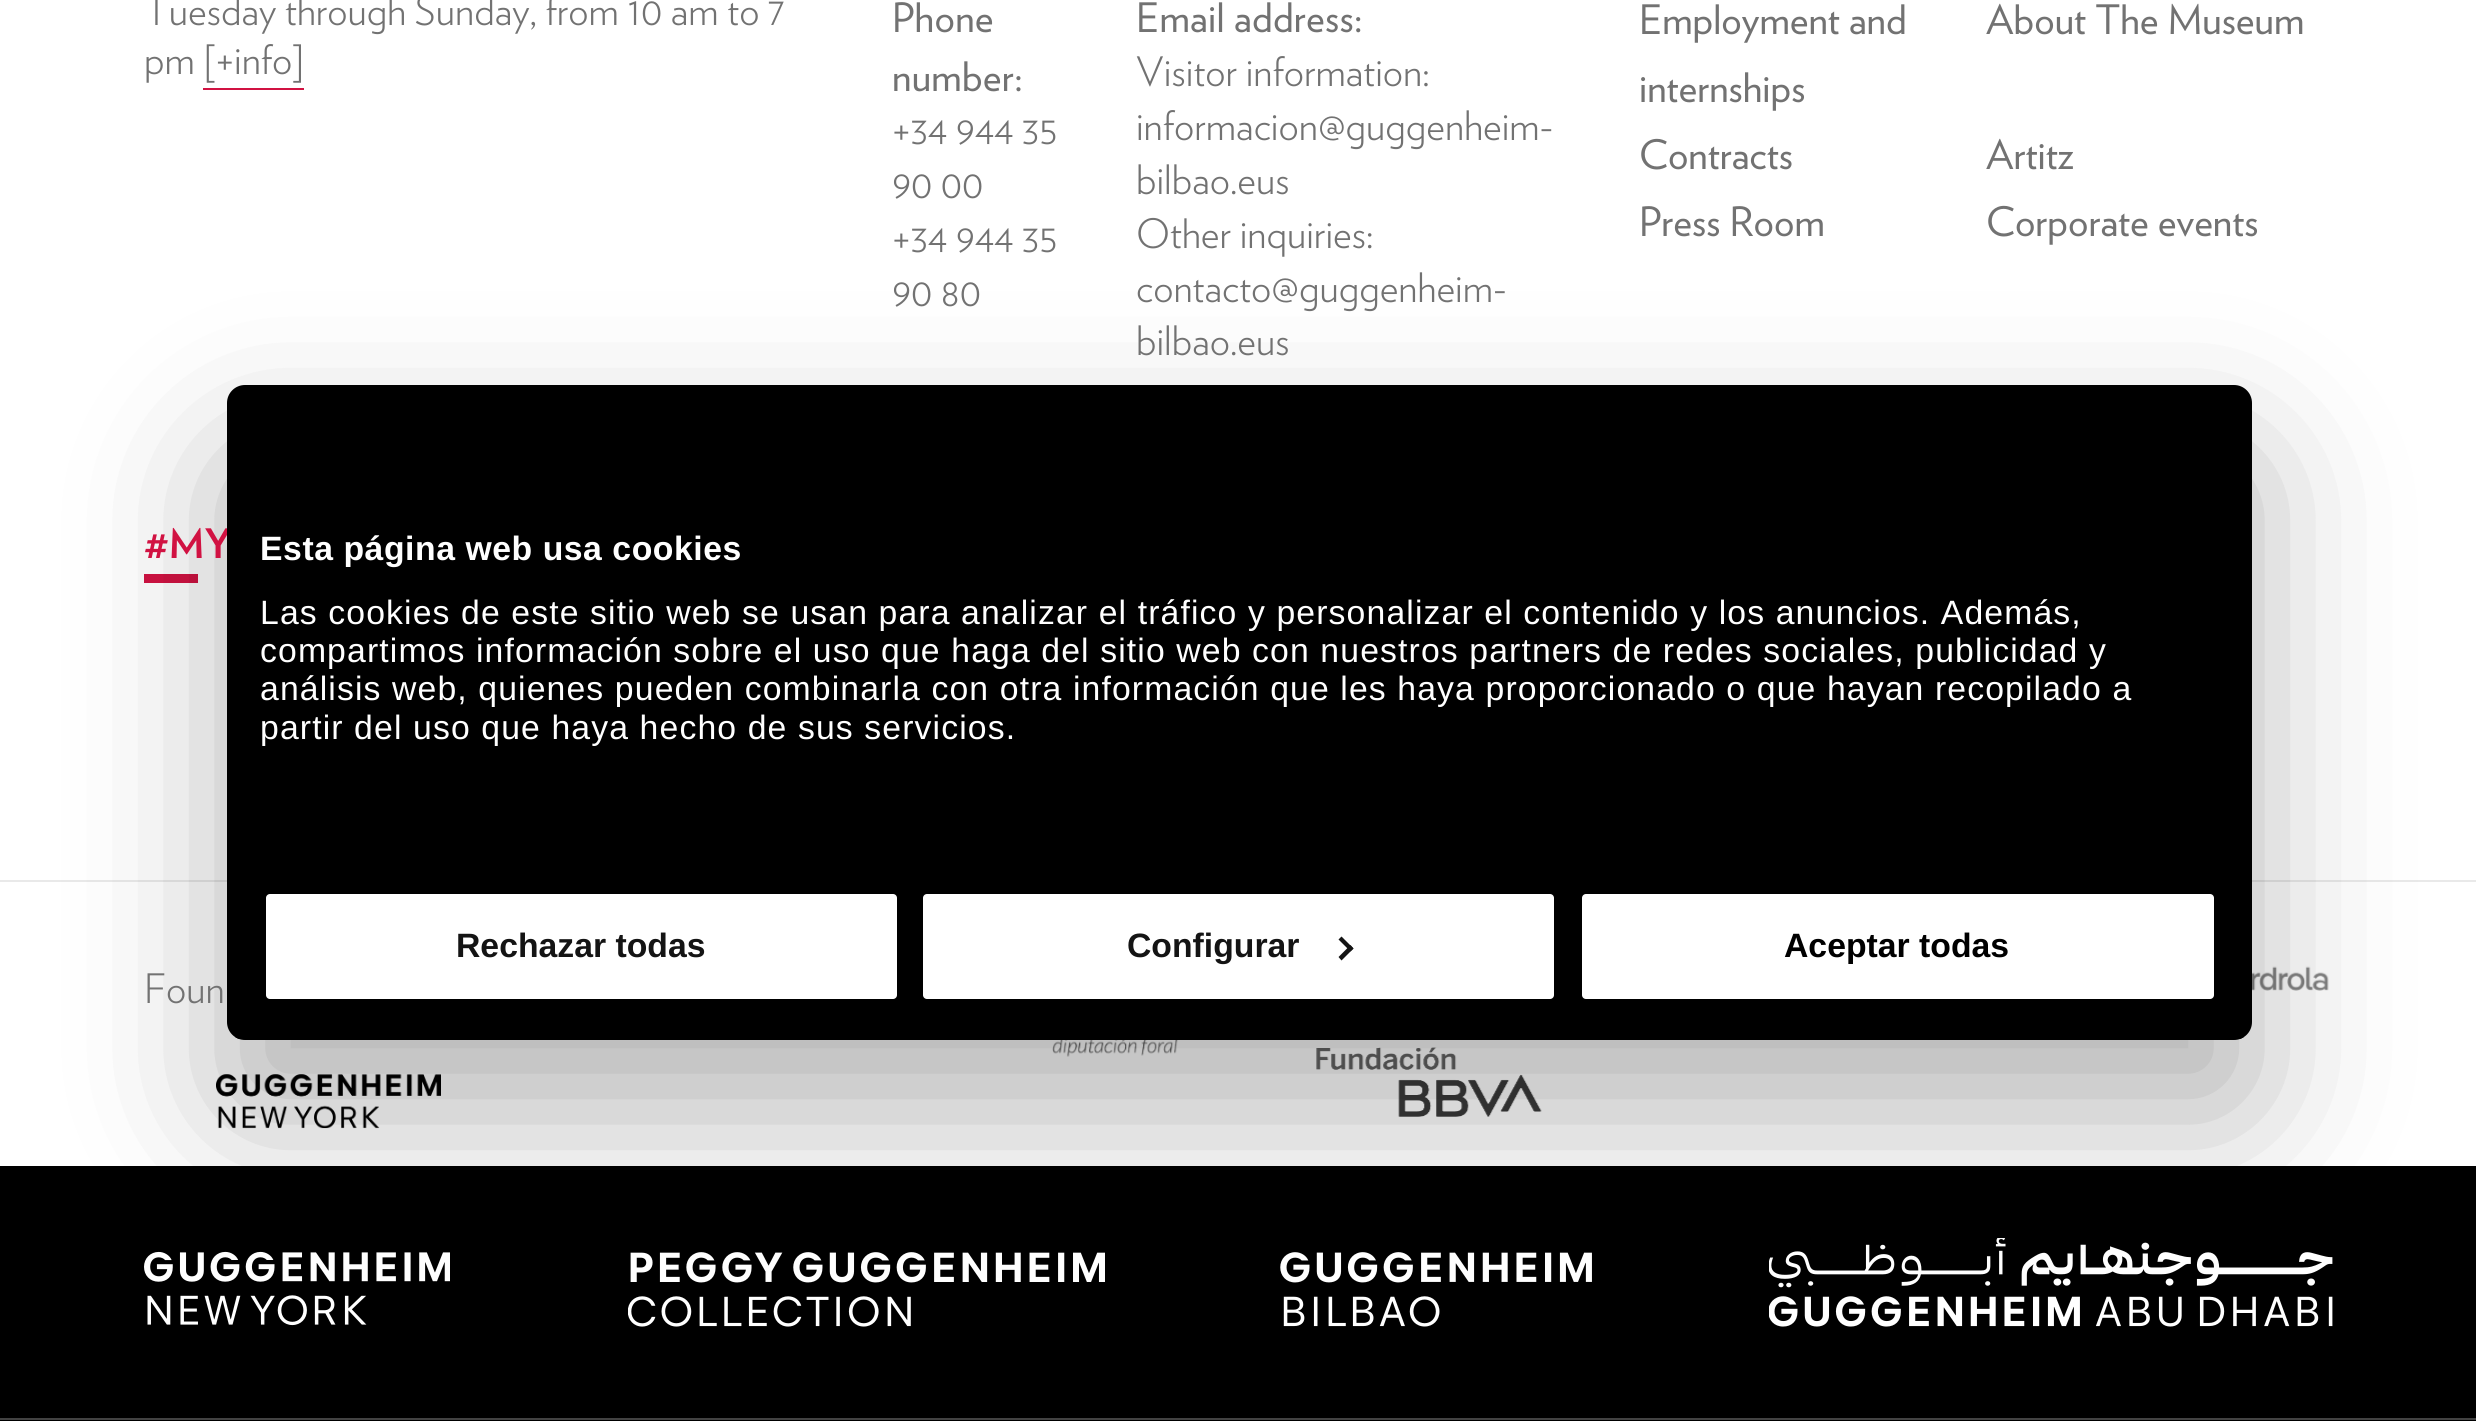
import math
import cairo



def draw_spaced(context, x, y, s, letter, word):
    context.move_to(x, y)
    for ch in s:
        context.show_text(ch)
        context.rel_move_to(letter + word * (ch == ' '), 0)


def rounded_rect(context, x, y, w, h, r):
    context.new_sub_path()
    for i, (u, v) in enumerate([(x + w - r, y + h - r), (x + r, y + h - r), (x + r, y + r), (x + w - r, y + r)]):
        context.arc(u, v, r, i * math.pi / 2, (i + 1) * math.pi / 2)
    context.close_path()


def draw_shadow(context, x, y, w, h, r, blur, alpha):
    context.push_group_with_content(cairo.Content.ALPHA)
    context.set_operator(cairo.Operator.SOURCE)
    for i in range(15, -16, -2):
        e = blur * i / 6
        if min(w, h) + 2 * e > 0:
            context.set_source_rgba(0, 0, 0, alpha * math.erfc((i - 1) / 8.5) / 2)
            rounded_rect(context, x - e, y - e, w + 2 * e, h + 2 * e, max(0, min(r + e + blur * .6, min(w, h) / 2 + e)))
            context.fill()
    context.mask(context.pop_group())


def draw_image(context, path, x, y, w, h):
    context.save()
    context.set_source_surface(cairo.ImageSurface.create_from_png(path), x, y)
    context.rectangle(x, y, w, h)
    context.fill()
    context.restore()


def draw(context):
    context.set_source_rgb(1, 1, 1)
    context.paint()
    context.set_source_rgb(209 / 255, 18 / 255, 66 / 255)
    context.rectangle(203, 88, 101, 2)
    context.fill()
    context.rectangle(144, 574, 54, 9)
    context.fill()
    context.set_source_rgb(233 / 255, 233 / 255, 233 / 255)
    context.rectangle(0, 880, 2476, 2)
    context.fill()
    draw_image(context, "images/1.png", 1052, 1040, 127, 17)
    draw_image(context, "images/2.png", 216, 1074, 225, 55)
    draw_image(context, "images/3.png", 2252, 957, 77, 44)
    draw_image(context, "images/4.png", 1316, 1047, 226, 70)
    context.set_source_rgb(0, 0, 0)
    context.rectangle(0, 1166, 2476, 255)
    context.fill()
    context.set_source_rgb(66 / 255, 66 / 255, 66 / 255)
    context.rectangle(0, 1418, 2476, 2)
    context.fill()
    draw_image(context, "images/5.png", 144, 1251, 306, 75)
    draw_image(context, "images/6.png", 628, 1252, 477, 75)
    draw_image(context, "images/7.png", 1280, 1252, 312, 75)
    draw_image(context, "images/8.png", 1769, 1238, 564, 89)
    context.set_source_rgb(0, 0, 0)
    draw_shadow(context, 227, 457, 2025, 655, 18, 76.5, 0.3)
    context.select_font_face("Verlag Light")
    context.set_font_size(40.5)
    context.set_source_rgb(114 / 255, 114 / 255, 114 / 255)
    context.move_to(144, 25)
    context.show_text("Tuesday through Sunday, from 10 am to 7")
    context.move_to(144, 74)
    context.show_text("pm [+info]")
    context.select_font_face("Verlag")
    draw_spaced(context, 892, 32, "Phone", 0.25, 0)
    draw_spaced(context, 892, 91, "number:", 0.25, 0)
    context.select_font_face("Verlag Light")
    context.move_to(892, 144)
    context.show_text("+34 944 35")
    context.move_to(892, 198)
    context.show_text("90 00")
    context.move_to(892, 252)
    context.show_text("+34 944 35")
    context.move_to(892, 306)
    context.show_text("90 80")
    context.select_font_face("Verlag")
    draw_spaced(context, 1136, 32, "Email address:", 0.25, 0)
    context.select_font_face("Verlag Light")
    context.move_to(1136, 86)
    context.show_text("Visitor information:")
    context.move_to(1136, 140)
    context.show_text("informacion@guggenheim-")
    context.move_to(1136, 194)
    context.show_text("bilbao.eus")
    context.move_to(1136, 248)
    context.show_text("Other inquiries:")
    context.move_to(1136, 302)
    context.show_text("contacto@guggenheim-")
    context.move_to(1136, 355)
    context.show_text("bilbao.eus")
    context.select_font_face("Verlag")
    context.move_to(1639, 34)
    context.show_text("Employment and")
    context.move_to(1639, 102)
    context.show_text("internships")
    context.move_to(1986, 34)
    context.show_text("About The Museum")
    context.move_to(1639, 169)
    context.show_text("Contracts")
    context.move_to(1986, 169)
    context.show_text("Artitz")
    context.move_to(1639, 236)
    context.show_text("Press Room")
    context.move_to(1986, 236)
    context.show_text("Corporate events")
    context.select_font_face("Verlag", cairo.FontSlant.NORMAL, cairo.FontWeight.BOLD)
    context.set_source_rgb(209 / 255, 18 / 255, 66 / 255)
    context.move_to(144, 558)
    context.show_text("#MY")
    context.select_font_face("Verlag Light")
    context.set_source_rgb(114 / 255, 114 / 255, 114 / 255)
    context.move_to(144, 1003)
    context.show_text("Foun")
    context.set_source_rgb(0, 0, 0)
    rounded_rect(context, 227, 385, 2025, 655, 18)
    context.fill()
    context.select_font_face("Liberation Sans", cairo.FontSlant.NORMAL, cairo.FontWeight.BOLD)
    context.set_font_size(33.75)
    context.set_source_rgb(1, 1, 1)
    draw_spaced(context, 260, 560, "Esta página web usa cookies", 0.55, 0)
    context.select_font_face("Liberation Sans")
    draw_spaced(context, 260, 624, "Las cookies de este sitio web se usan para analizar el tráfico y personalizar el contenido y los anuncios. Además,", 1.12, 0)
    draw_spaced(context, 260, 662, "compartimos información sobre el uso que haga del sitio web con nuestros partners de redes sociales, publicidad y", 1.12, 0)
    draw_spaced(context, 260, 700, "análisis web, quienes pueden combinarla con otra información que les haya proporcionado o que hayan recopilado a", 1.12, 0)
    draw_spaced(context, 260, 739, "partir del uso que haya hecho de sus servicios.", 1.12, 0)
    context.save()
    rounded_rect(context, 227, 385, 2025, 655, 18)
    context.clip()
    context.set_source_rgb(0, 0, 0)
    context.rectangle(227, 1037, 2025, 2)
    context.fill()
    context.restore()
    rounded_rect(context, 263.5, 891.5, 636, 110, 6.5)
    context.fill_preserve()
    context.set_source_rgb(0, 0, 0)
    context.set_line_width(5)
    context.stroke()
    context.select_font_face("Liberation Sans", cairo.FontSlant.NORMAL, cairo.FontWeight.BOLD)
    context.set_source_rgb(20 / 255, 20 / 255, 20 / 255)
    context.move_to(456, 957)
    context.show_text("Rechazar todas")
    context.set_source_rgb(1, 1, 1)
    rounded_rect(context, 920.5, 891.5, 636, 110, 6.5)
    context.fill_preserve()
    context.set_source_rgb(0, 0, 0)
    context.stroke()
    context.set_source_rgb(20 / 255, 20 / 255, 20 / 255)
    context.move_to(1127, 957)
    context.show_text("Configurar")
    context.new_path()
    context.move_to(1341.5, 936.5)
    context.line_to(1353.5, 948.5)
    context.line_to(1350.5, 951.5)
    context.line_to(1338.5, 939.5)
    context.close_path()
    context.fill()
    context.new_path()
    context.move_to(1350.5, 945)
    context.line_to(1353.5, 948.5)
    context.line_to(1341.5, 960.5)
    context.line_to(1338.5, 957)
    context.close_path()
    context.fill()
    context.set_source_rgb(1, 1, 1)
    rounded_rect(context, 1579.5, 891.5, 637, 110, 6.5)
    context.fill_preserve()
    context.set_source_rgb(0, 0, 0)
    context.stroke()
    context.move_to(1784, 957)
    context.show_text("Aceptar todas")


surface = cairo.ImageSurface(cairo.Format.RGB24, 2476, 1421)
context = cairo.Context(surface)
options = cairo.FontOptions()
options.set_hint_metrics(cairo.HintMetrics.OFF)
options.set_hint_style(cairo.HintStyle.NONE)
context.set_font_options(options)
context.set_miter_limit(4)
draw(context)
surface.write_to_png("out.png")
